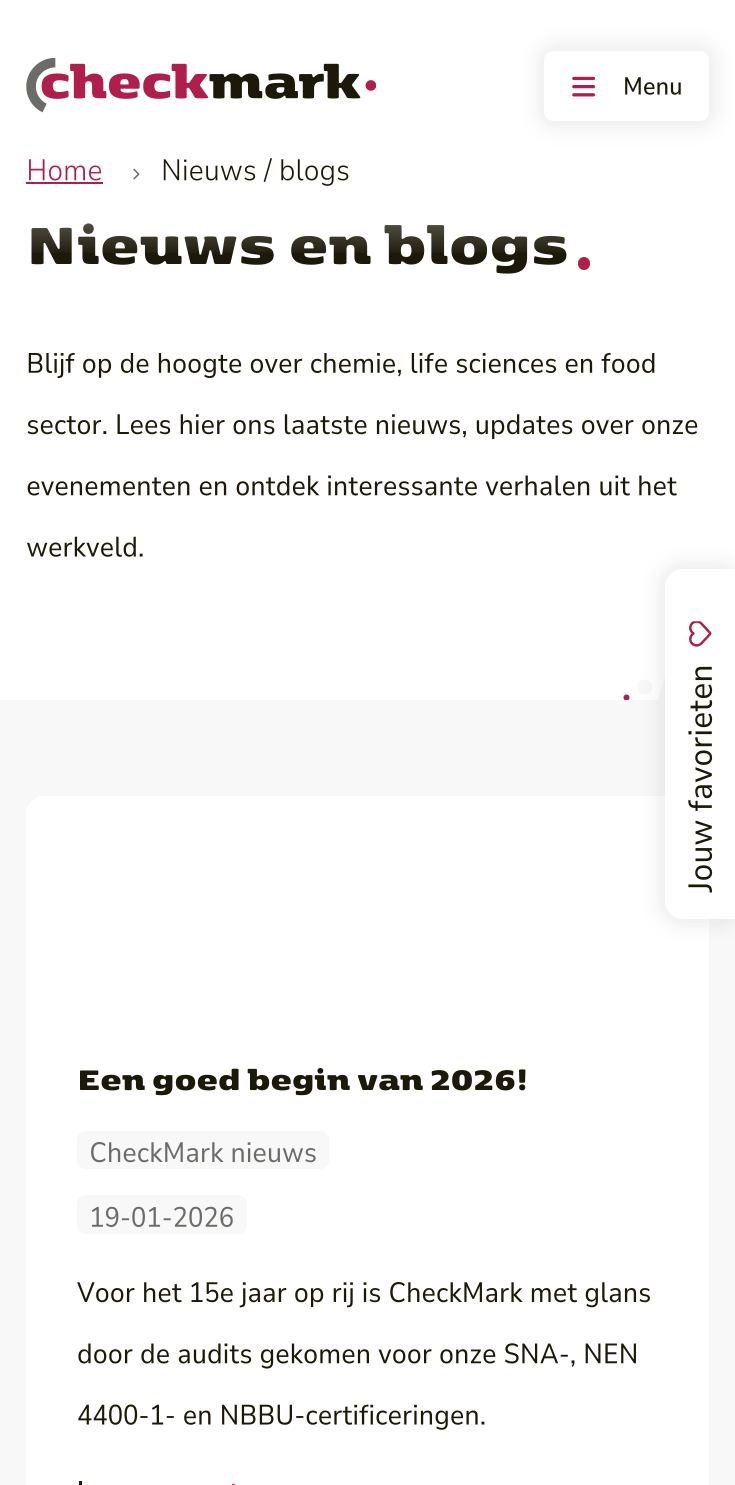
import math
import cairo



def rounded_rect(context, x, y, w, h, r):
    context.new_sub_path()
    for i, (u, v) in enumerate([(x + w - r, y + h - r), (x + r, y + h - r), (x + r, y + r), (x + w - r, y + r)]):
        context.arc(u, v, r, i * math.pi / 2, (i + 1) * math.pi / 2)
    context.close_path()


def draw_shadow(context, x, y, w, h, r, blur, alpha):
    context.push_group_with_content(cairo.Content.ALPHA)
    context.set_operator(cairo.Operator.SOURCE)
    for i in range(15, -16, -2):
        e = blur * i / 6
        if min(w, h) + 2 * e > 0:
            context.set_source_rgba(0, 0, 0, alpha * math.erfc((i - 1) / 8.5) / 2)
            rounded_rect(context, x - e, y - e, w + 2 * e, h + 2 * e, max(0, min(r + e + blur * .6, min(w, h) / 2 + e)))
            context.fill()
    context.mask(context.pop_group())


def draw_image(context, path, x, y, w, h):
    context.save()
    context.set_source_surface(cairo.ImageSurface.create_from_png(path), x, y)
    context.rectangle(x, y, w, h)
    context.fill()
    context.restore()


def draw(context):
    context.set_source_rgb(1, 1, 1)
    context.paint()
    draw_image(context, "images/1.png", 26, 58, 350, 55)
    context.set_source_rgb(100 / 255, 100 / 255, 100 / 255)
    draw_shadow(context, 536, 42, 182, 88, 18, 9, 0.1)
    context.set_source_rgb(1, 1, 1)
    rounded_rect(context, 544, 51, 165, 70, 9)
    context.fill()
    draw_image(context, "images/2.png", 572, 76, 24, 21)
    draw_image(context, "images/3.png", 625, 77, 56, 18)
    draw_image(context, "images/4.png", 29, 159, 73, 22)
    context.set_source_rgb(174 / 255, 31 / 255, 77 / 255)
    context.rectangle(26, 182, 77, 2)
    context.fill()
    draw_image(context, "images/5.png", 133, 168, 7, 12)
    draw_image(context, "images/6.png", 163, 158, 186, 28)
    rounded_rect(context, 578, 257, 12, 13, 6)
    context.fill()
    draw_image(context, "images/7.png", 28, 352, 627, 27)
    draw_image(context, "images/8.png", 27, 414, 671, 26)
    draw_image(context, "images/9.png", 27, 475, 650, 21)
    draw_image(context, "images/10.png", 27, 536, 116, 21)
    context.arc(626.5, 697.5, 3, 0, 2 * math.pi)
    context.fill()
    context.set_source_rgb(248 / 255, 248 / 255, 248 / 255)
    context.new_path()
    context.move_to(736, 709)
    context.line_to(658, 709)
    context.curve_to(658, 666, 693, 631, 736, 631)
    context.close_path()
    context.move_to(637, 687)
    context.curve_to(637, 697, 652, 697, 652, 687)
    context.curve_to(652, 677, 637, 677, 637, 687)
    context.close_path()
    context.move_to(702, 624)
    context.curve_to(702, 626, 706, 626, 706, 624)
    context.curve_to(706, 621, 702, 621, 702, 624)
    context.close_path()
    context.fill()
    context.rectangle(0, 700, 735, 785)
    context.fill()
    context.set_source_rgb(1, 1, 1)
    rounded_rect(context, 26, 796, 683, 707, 18)
    context.fill()
    context.set_source_rgb(248 / 255, 248 / 255, 248 / 255)
    rounded_rect(context, 77, 1131, 252, 38, 9)
    context.fill()
    draw_image(context, "images/11.png", 91, 1142, 225, 21)
    rounded_rect(context, 77, 1195, 170, 39, 9)
    context.fill()
    draw_image(context, "images/12.png", 91, 1206, 142, 21)
    draw_image(context, "images/13.png", 77, 1282, 573, 26)
    draw_image(context, "images/14.png", 78, 1343, 558, 26)
    draw_image(context, "images/15.png", 78, 1404, 407, 26)
    context.set_source_rgb(29 / 255, 25 / 255, 10 / 255)
    context.rectangle(79, 1481, 3, 4)
    context.fill()
    draw_image(context, "images/16.png", 232, 1483, 3, 2)
    context.set_source_rgb(100 / 255, 100 / 255, 100 / 255)
    draw_shadow(context, 656, 560, 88, 368, 26, 9, 0.1)
    context.set_source_rgb(1, 1, 1)
    context.new_path()
    context.move_to(683, 569)
    context.line_to(735, 569)
    context.line_to(735, 919)
    context.line_to(683, 919)
    context.curve_to(673, 919, 665, 911, 665, 901)
    context.line_to(665, 587)
    context.curve_to(665, 577, 673, 569, 683, 569)
    context.close_path()
    context.fill()
    draw_image(context, "images/17.png", 689, 621, 23, 26)
    draw_image(context, "images/18.png", 688, 666, 25, 227)
    context.select_font_face("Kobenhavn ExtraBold")
    context.set_font_size(61.25)
    context.set_source_rgb(29 / 255, 25 / 255, 10 / 255)
    context.move_to(26, 264)
    context.show_text("Nieuws en blogs")
    gradient = cairo.LinearGradient(368, 0, 368, 256)
    gradient.add_color_stop_rgba(0, 1, 1, 1, 1)
    gradient.add_color_stop_rgba(0.5, 1, 1, 1, 0.9)
    gradient.add_color_stop_rgba(1, 1, 1, 1, 0)
    context.set_source(gradient)
    context.rectangle(31, 223, 535, 30)
    context.fill()
    context.set_font_size(33.25)
    context.set_source_rgb(29 / 255, 25 / 255, 10 / 255)
    context.move_to(77, 1090)
    context.show_text("Een goed begin van 2026!")


surface = cairo.ImageSurface(cairo.Format.RGB24, 735, 1485)
context = cairo.Context(surface)
options = cairo.FontOptions()
options.set_hint_metrics(cairo.HintMetrics.OFF)
options.set_hint_style(cairo.HintStyle.NONE)
context.set_font_options(options)
context.set_miter_limit(4)
draw(context)
surface.write_to_png("out.png")
